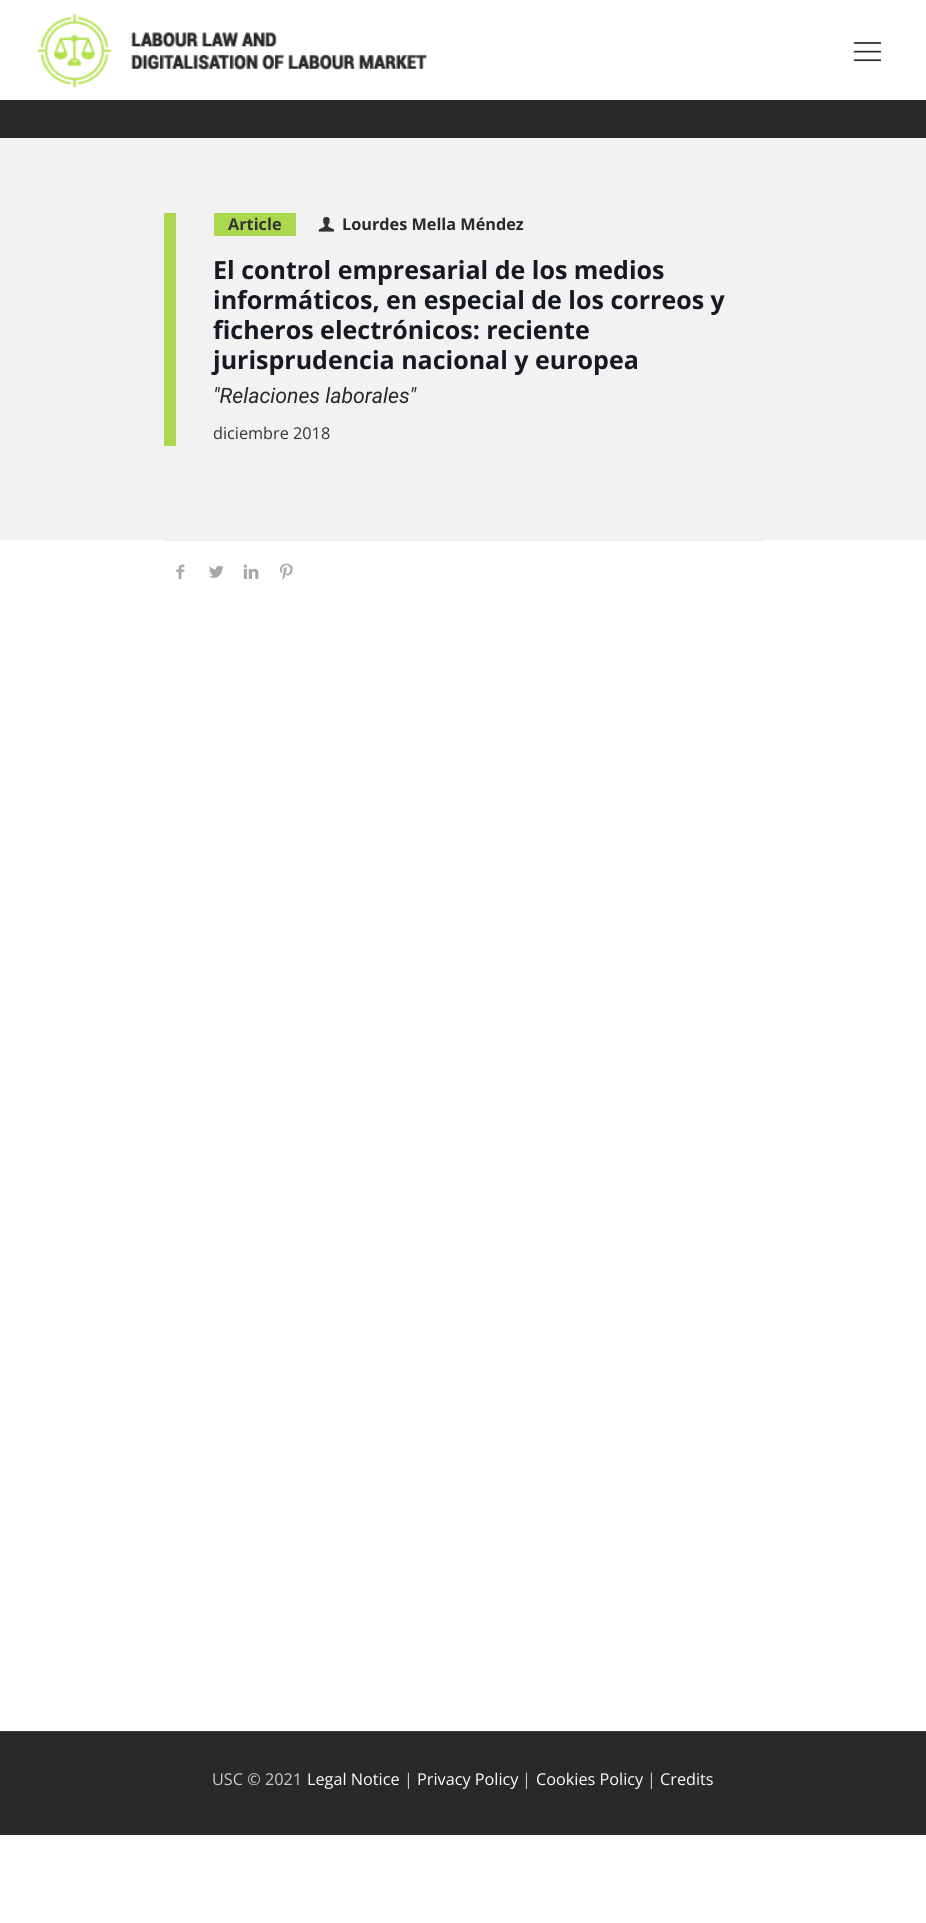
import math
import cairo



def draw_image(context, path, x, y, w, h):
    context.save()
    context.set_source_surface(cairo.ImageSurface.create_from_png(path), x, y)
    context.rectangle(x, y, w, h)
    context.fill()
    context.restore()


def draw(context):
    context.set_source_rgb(1, 1, 1)
    context.paint()
    draw_image(context, "images/1.png", 37, 13, 390, 75)
    draw_image(context, "images/2.png", 853, 42, 29, 20)
    context.set_source_rgb(41 / 255, 41 / 255, 41 / 255)
    context.rectangle(0, 100, 926, 38)
    context.fill()
    context.set_source_rgb(242 / 255, 242 / 255, 242 / 255)
    context.rectangle(0, 138, 926, 402)
    context.fill()
    context.set_source_rgb(171 / 255, 216 / 255, 78 / 255)
    context.rectangle(164, 213, 12, 233)
    context.fill()
    context.rectangle(214, 213, 82, 23)
    context.fill()
    draw_image(context, "images/3.png", 318, 217, 17, 15)
    context.set_source_rgb(235 / 255, 235 / 255, 235 / 255)
    context.rectangle(164, 540, 600, 1)
    context.fill()
    draw_image(context, "images/4.png", 176, 564, 9, 16)
    draw_image(context, "images/5.png", 209, 565, 15, 13)
    draw_image(context, "images/6.png", 243, 564, 16, 15)
    draw_image(context, "images/7.png", 280, 563, 13, 17)
    context.set_source_rgb(41 / 255, 41 / 255, 41 / 255)
    context.rectangle(0, 1732, 926, 103)
    context.fill()
    context.set_source_rgb(62 / 255, 62 / 255, 62 / 255)
    context.rectangle(0, 1731, 926, 1)
    context.fill()
    context.select_font_face("Open Sans", cairo.FontSlant.NORMAL, cairo.FontWeight.BOLD)
    context.set_font_size(16.25)
    context.set_source_rgb(51 / 255, 51 / 255, 51 / 255)
    context.move_to(228, 230)
    context.show_text("Article")
    context.set_source_rgb(41 / 255, 41 / 255, 41 / 255)
    context.move_to(342, 230)
    context.show_text("Lourdes Mella Méndez")
    context.set_font_size(25)
    context.set_source_rgb(22 / 255, 25 / 255, 34 / 255)
    context.move_to(213, 279)
    context.show_text("El control empresarial de los medios")
    context.move_to(213, 309)
    context.show_text("informáticos, en especial de los correos y")
    context.move_to(213, 339)
    context.show_text("ficheros electrónicos: reciente")
    context.move_to(213, 369)
    context.show_text("jurisprudencia nacional y europea")
    context.select_font_face("Roboto", cairo.FontSlant.ITALIC)
    context.set_font_size(21.25)
    context.set_source_rgb(41 / 255, 41 / 255, 41 / 255)
    context.move_to(213, 403)
    context.show_text("\"Relaciones laborales\"")
    context.select_font_face("Open Sans")
    context.set_font_size(16.25)
    context.set_source_rgb(51 / 255, 51 / 255, 51 / 255)
    context.move_to(213, 439)
    context.show_text("diciembre 2018")
    context.set_source_rgb(204 / 255, 204 / 255, 204 / 255)
    context.move_to(212, 1785)
    context.show_text("USC © 2021")
    context.set_source_rgb(1, 1, 1)
    context.move_to(307, 1785)
    context.show_text("Legal Notice")
    context.set_source_rgb(204 / 255, 204 / 255, 204 / 255)
    context.move_to(404, 1785)
    context.show_text("|")
    context.set_source_rgb(1, 1, 1)
    context.move_to(417, 1785)
    context.show_text("Privacy Policy")
    context.set_source_rgb(204 / 255, 204 / 255, 204 / 255)
    context.move_to(522, 1785)
    context.show_text("|")
    context.set_source_rgb(1, 1, 1)
    context.move_to(536, 1785)
    context.show_text("Cookies Policy")
    context.set_source_rgb(204 / 255, 204 / 255, 204 / 255)
    context.move_to(647, 1785)
    context.show_text("|")
    context.set_source_rgb(1, 1, 1)
    context.move_to(660, 1785)
    context.show_text("Credits")


surface = cairo.ImageSurface(cairo.Format.RGB24, 926, 1923)
context = cairo.Context(surface)
options = cairo.FontOptions()
options.set_hint_metrics(cairo.HintMetrics.OFF)
options.set_hint_style(cairo.HintStyle.NONE)
context.set_font_options(options)
context.set_miter_limit(4)
draw(context)
surface.write_to_png("out.png")
